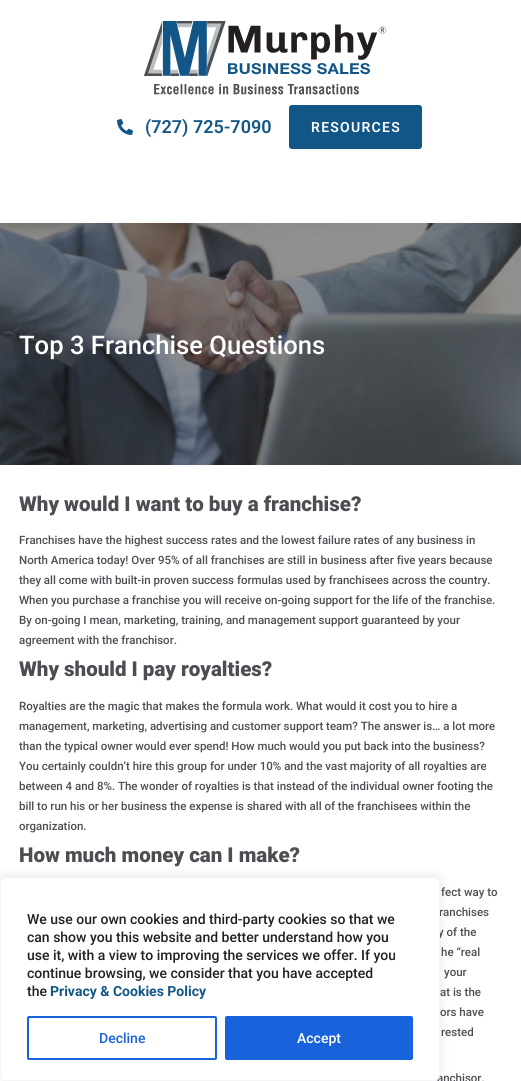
import math
import cairo



def draw_spaced(context, x, y, s, letter, word):
    context.move_to(x, y)
    for ch in s:
        context.show_text(ch)
        context.rel_move_to(letter + word * (ch == ' '), 0)


def rounded_rect(context, x, y, w, h, r):
    context.new_sub_path()
    for i, (u, v) in enumerate([(x + w - r, y + h - r), (x + r, y + h - r), (x + r, y + r), (x + w - r, y + r)]):
        context.arc(u, v, r, i * math.pi / 2, (i + 1) * math.pi / 2)
    context.close_path()


def draw_shadow(context, x, y, w, h, r, blur, alpha):
    context.push_group_with_content(cairo.Content.ALPHA)
    context.set_operator(cairo.Operator.SOURCE)
    for i in range(15, -16, -2):
        e = blur * i / 6
        if min(w, h) + 2 * e > 0:
            context.set_source_rgba(0, 0, 0, alpha * math.erfc((i - 1) / 8.5) / 2)
            rounded_rect(context, x - e, y - e, w + 2 * e, h + 2 * e, max(0, min(r + e + blur * .6, min(w, h) / 2 + e)))
            context.fill()
    context.mask(context.pop_group())


def draw_image(context, path, x, y, w, h):
    context.save()
    context.set_source_surface(cairo.ImageSurface.create_from_png(path), x, y)
    context.rectangle(x, y, w, h)
    context.fill()
    context.restore()


def draw(context):
    context.set_source_rgb(1, 1, 1)
    context.paint()
    draw_image(context, "images/1.png", 143, 21, 244, 74)
    draw_image(context, "images/2.png", 117, 119, 16, 16)
    context.set_source_rgb(18 / 255, 86 / 255, 135 / 255)
    rounded_rect(context, 289.5, 105.5, 132, 43, 2.5)
    context.fill_preserve()
    context.set_line_width(1)
    context.stroke()
    draw_image(context, "images/3.png", 0, 223, 521, 242)
    context.set_source_rgb(172 / 255, 171 / 255, 171 / 255)
    draw_shadow(context, 0, 876, 440, 204, 6, 5, 0.3)
    context.select_font_face("Roboto SemiBold")
    context.set_font_size(18)
    context.set_source_rgb(18 / 255, 86 / 255, 135 / 255)
    context.move_to(145, 133)
    context.show_text("(727) 725-7090")
    context.set_font_size(14)
    context.set_source_rgb(1, 1, 1)
    draw_spaced(context, 311, 132, "RESOURCES", 1.25, 0)
    context.select_font_face("Roboto Medium")
    context.set_font_size(25.6)
    context.move_to(19, 354)
    context.show_text("Top 3 Franchise Questions")
    context.select_font_face("Roboto Black")
    context.set_font_size(20.5)
    context.set_source_rgb(77 / 255, 78 / 255, 83 / 255)
    context.move_to(19, 511)
    context.show_text("Why would I want to buy a franchise?")
    context.select_font_face("Roboto Medium")
    context.set_font_size(11.5)
    context.move_to(19, 544)
    context.show_text("Franchises have the highest success rates and the lowest failure rates of any business in")
    context.move_to(19, 564)
    context.show_text("North America today! Over 95% of all franchises are still in business after five years because")
    context.move_to(19, 584)
    context.show_text("they all come with built-in proven success formulas used by franchisees across the country.")
    context.move_to(19, 604)
    context.show_text("When you purchase a franchise you will receive on-going support for the life of the franchise.")
    context.move_to(19, 624)
    context.show_text("By on-going I mean, marketing, training, and management support guaranteed by your")
    context.move_to(19, 644)
    context.show_text("agreement with the franchisor.")
    context.select_font_face("Roboto Black")
    context.set_font_size(20.5)
    context.move_to(19, 676)
    context.show_text("Why should I pay royalties?")
    context.select_font_face("Roboto Medium")
    context.set_font_size(11.5)
    context.move_to(19, 710)
    context.show_text("Royalties are the magic that makes the formula work. What would it cost you to hire a")
    context.move_to(19, 730)
    context.show_text("management, marketing, advertising and customer support team? The answer is… a lot more")
    context.move_to(19, 750)
    context.show_text("than the typical owner would ever spend! How much would you put back into the business?")
    context.move_to(19, 770)
    context.show_text("You certainly couldn’t hire this group for under 10% and the vast majority of all royalties are")
    context.move_to(19, 790)
    context.show_text("between 4 and 8%. The wonder of royalties is that instead of the individual owner footing the")
    context.move_to(19, 810)
    context.show_text("bill to run his or her business the expense is shared with all of the franchisees within the")
    context.move_to(19, 830)
    context.show_text("organization.")
    context.select_font_face("Roboto Black")
    context.set_font_size(20.5)
    context.move_to(19, 862)
    context.show_text("How much money can I make?")
    context.select_font_face("Roboto Medium")
    context.set_font_size(11.5)
    context.move_to(441, 896)
    context.show_text("fect way to")
    context.move_to(439, 916)
    context.show_text("ranchises")
    context.move_to(438, 936)
    context.show_text("y of the")
    context.move_to(441, 956)
    context.show_text("he “real")
    context.move_to(444, 976)
    context.show_text("your")
    context.move_to(440, 996)
    context.show_text("at is the")
    context.move_to(440, 1016)
    context.show_text("ors have")
    context.move_to(441, 1036)
    context.show_text("rested")
    context.move_to(437, 1082)
    context.show_text("anchisor.")
    context.set_source_rgb(1, 1, 1)
    rounded_rect(context, 0.5, 877.5, 439, 203, 5.5)
    context.fill_preserve()
    context.set_source_rgb(244 / 255, 244 / 255, 244 / 255)
    context.stroke()
    context.set_font_size(14)
    context.set_source_rgb(33 / 255, 33 / 255, 33 / 255)
    context.move_to(27, 924)
    context.show_text("We use our own cookies and third-party cookies so that we")
    context.move_to(27, 942)
    context.show_text("can show you this website and better understand how you")
    context.move_to(27, 960)
    context.show_text("use it, with a view to improving the services we offer. If you")
    context.move_to(27, 978)
    context.show_text("continue browsing, we consider that you have accepted")
    context.move_to(27, 996)
    context.show_text("the")
    context.select_font_face("Roboto", cairo.FontSlant.NORMAL, cairo.FontWeight.BOLD)
    context.set_source_rgb(18 / 255, 86 / 255, 135 / 255)
    context.move_to(50, 996)
    context.show_text("Privacy & Cookies Policy")
    rounded_rect(context, 28, 1017, 188, 42, 1)
    context.set_source_rgb(24 / 255, 99 / 255, 220 / 255)
    context.set_line_width(2)
    context.stroke()
    context.select_font_face("Roboto Medium")
    context.move_to(99, 1043)
    context.show_text("Decline")
    rounded_rect(context, 226, 1017, 186, 42, 1)
    context.fill_preserve()
    context.stroke()
    context.set_source_rgb(1, 1, 1)
    context.move_to(297, 1043)
    context.show_text("Accept")


surface = cairo.ImageSurface(cairo.Format.RGB24, 521, 1081)
context = cairo.Context(surface)
options = cairo.FontOptions()
options.set_hint_metrics(cairo.HintMetrics.OFF)
options.set_hint_style(cairo.HintStyle.NONE)
context.set_font_options(options)
context.set_miter_limit(4)
draw(context)
surface.write_to_png("out.png")
